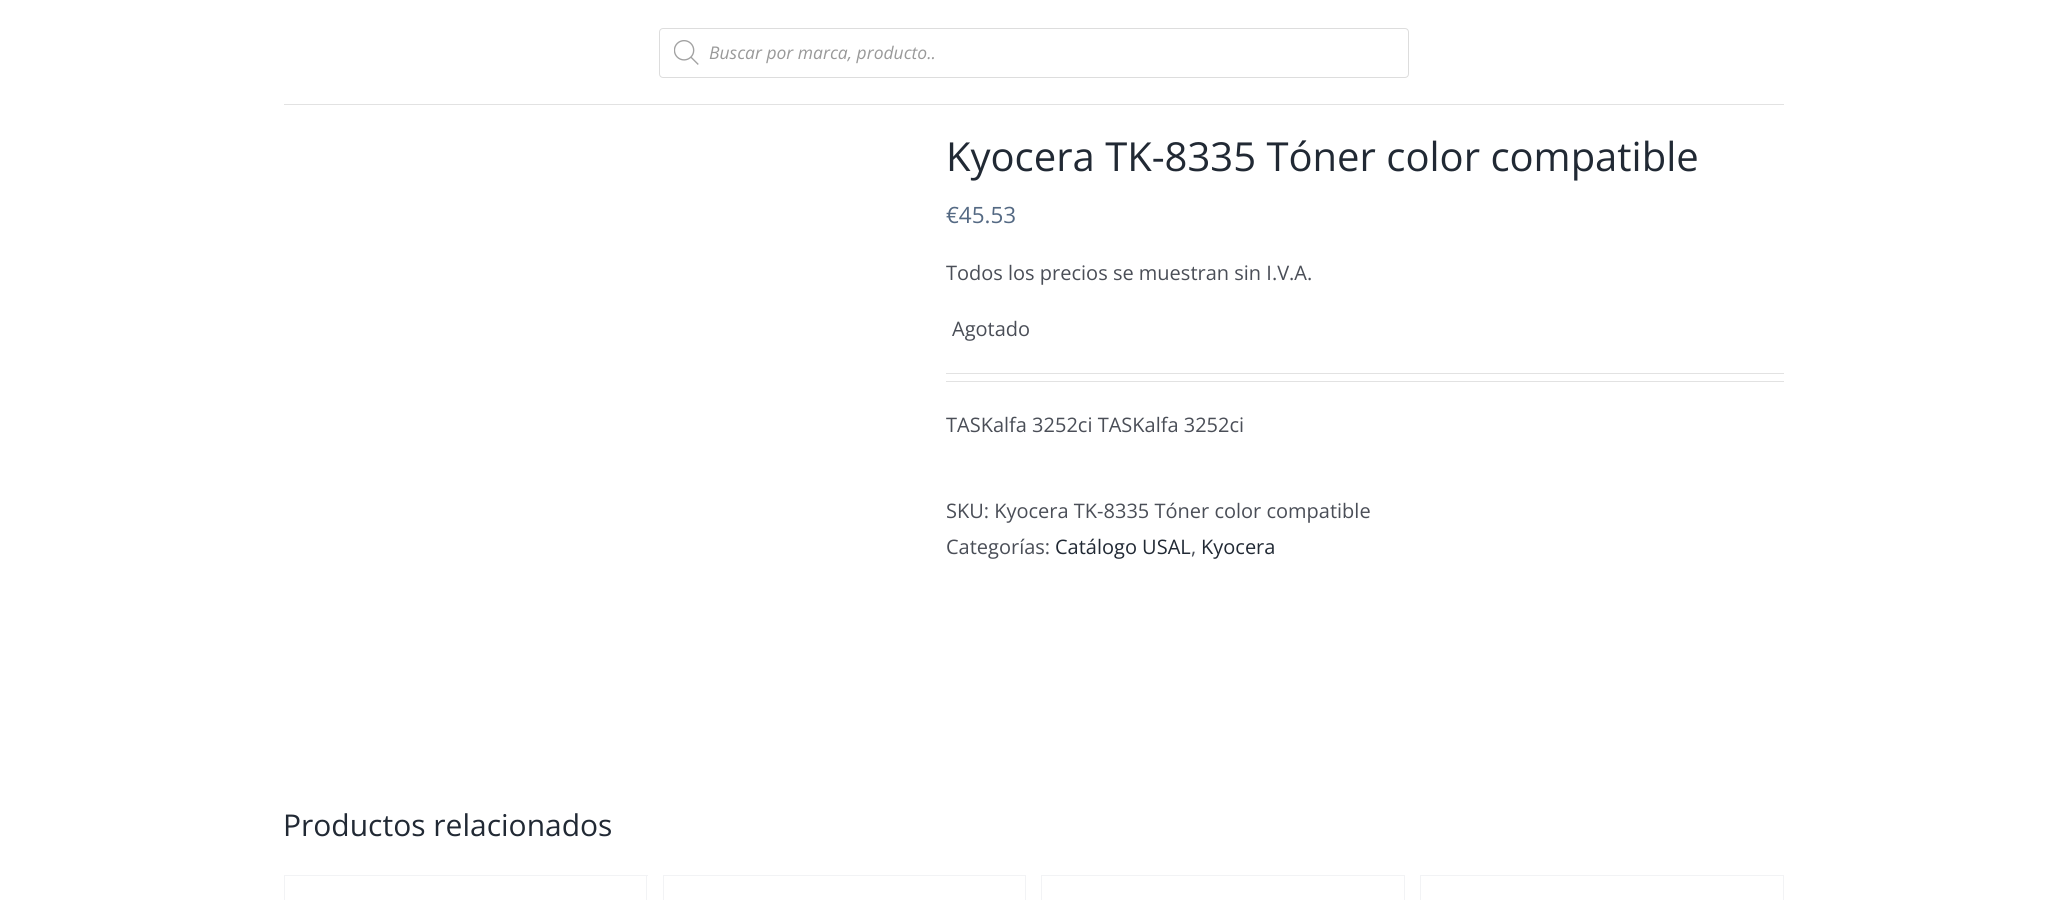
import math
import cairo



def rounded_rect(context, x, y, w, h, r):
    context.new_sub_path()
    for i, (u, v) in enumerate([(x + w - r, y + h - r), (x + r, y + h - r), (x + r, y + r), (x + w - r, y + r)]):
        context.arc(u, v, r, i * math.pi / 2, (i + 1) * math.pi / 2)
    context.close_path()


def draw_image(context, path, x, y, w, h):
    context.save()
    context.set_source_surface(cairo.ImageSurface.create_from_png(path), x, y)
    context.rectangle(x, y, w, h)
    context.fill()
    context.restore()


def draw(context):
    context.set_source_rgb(1, 1, 1)
    context.paint()
    rounded_rect(context, 659.5, 28.5, 749, 49, 3.5)
    context.set_source_rgb(221 / 255, 221 / 255, 221 / 255)
    context.set_line_width(1)
    context.stroke()
    draw_image(context, "images/1.png", 674, 40, 25, 25)
    context.set_source_rgb(226 / 255, 226 / 255, 226 / 255)
    context.rectangle(284, 104, 1500, 1)
    context.fill()
    context.rectangle(946, 373, 838, 1)
    context.fill()
    context.rectangle(946, 381, 838, 1)
    context.fill()
    context.set_source_rgb(242 / 255, 243 / 255, 245 / 255)
    context.rectangle(284, 875, 364, 1)
    context.fill()
    context.rectangle(646, 875, 1, 25)
    context.fill()
    context.rectangle(284, 875, 1, 25)
    context.fill()
    context.rectangle(663, 875, 363, 1)
    context.fill()
    context.rectangle(1025, 875, 1, 25)
    context.fill()
    context.rectangle(663, 875, 1, 25)
    context.fill()
    context.rectangle(1041, 875, 364, 1)
    context.fill()
    context.rectangle(1404, 875, 1, 25)
    context.fill()
    context.rectangle(1041, 875, 1, 25)
    context.fill()
    context.rectangle(1420, 875, 364, 1)
    context.fill()
    context.rectangle(1783, 875, 1, 25)
    context.fill()
    context.rectangle(1420, 875, 1, 25)
    context.fill()
    context.select_font_face("Open Sans", cairo.FontSlant.ITALIC)
    context.set_font_size(17.5)
    context.set_source_rgb(153 / 255, 153 / 255, 153 / 255)
    context.move_to(709, 59)
    context.show_text("Buscar por marca, producto..")
    context.select_font_face("Open Sans")
    context.set_font_size(40)
    context.set_source_rgb(33 / 255, 41 / 255, 52 / 255)
    context.move_to(946, 171)
    context.show_text("Kyocera TK-8335 Tóner color compatible")
    context.set_font_size(22.5)
    context.set_source_rgb(84 / 255, 105 / 255, 131 / 255)
    context.move_to(946, 223)
    context.show_text("€45.53")
    context.set_font_size(20)
    context.set_source_rgb(74 / 255, 78 / 255, 87 / 255)
    context.move_to(946, 280)
    context.show_text("Todos los precios se muestran sin I.V.A.")
    context.move_to(952, 336)
    context.show_text("Agotado")
    context.move_to(946, 432)
    context.show_text("TASKalfa 3252ci TASKalfa 3252ci")
    context.move_to(946, 518)
    context.show_text("SKU: Kyocera TK-8335 Tóner color compatible")
    context.move_to(946, 554)
    context.show_text("Categorías:")
    context.set_source_rgb(33 / 255, 41 / 255, 52 / 255)
    context.move_to(1055, 554)
    context.show_text("Catálogo USAL")
    context.set_source_rgb(74 / 255, 78 / 255, 87 / 255)
    context.move_to(1191, 554)
    context.show_text(",")
    context.set_source_rgb(33 / 255, 41 / 255, 52 / 255)
    context.move_to(1201, 554)
    context.show_text("Kyocera")
    context.set_font_size(30)
    context.move_to(283, 836)
    context.show_text("Productos relacionados")


surface = cairo.ImageSurface(cairo.Format.RGB24, 2066, 900)
context = cairo.Context(surface)
options = cairo.FontOptions()
options.set_hint_metrics(cairo.HintMetrics.OFF)
options.set_hint_style(cairo.HintStyle.NONE)
context.set_font_options(options)
context.set_miter_limit(4)
draw(context)
surface.write_to_png("out.png")
